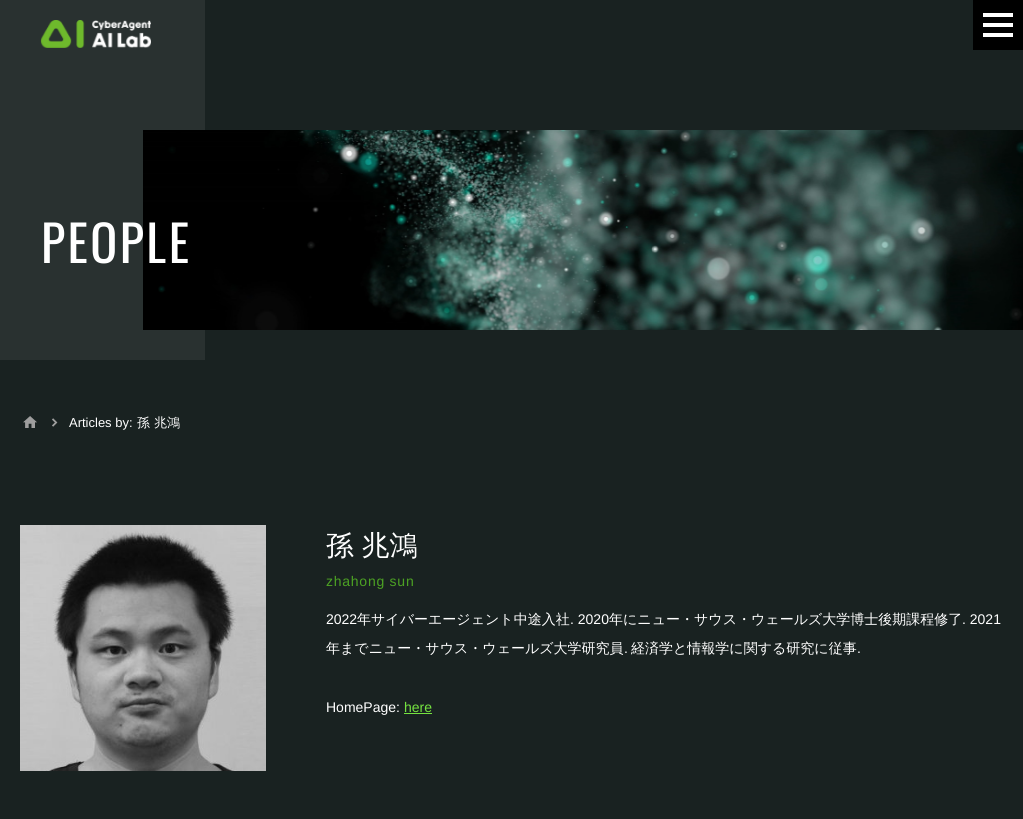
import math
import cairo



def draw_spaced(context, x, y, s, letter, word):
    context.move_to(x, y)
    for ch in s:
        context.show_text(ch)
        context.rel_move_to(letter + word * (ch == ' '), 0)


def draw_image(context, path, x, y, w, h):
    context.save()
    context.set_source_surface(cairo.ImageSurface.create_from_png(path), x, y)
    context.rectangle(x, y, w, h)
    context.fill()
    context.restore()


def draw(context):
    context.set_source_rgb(25 / 255, 34 / 255, 33 / 255)
    context.paint()
    context.set_source_rgb(41 / 255, 49 / 255, 48 / 255)
    context.rectangle(0, 0, 205, 360)
    context.fill()
    draw_image(context, "images/1.png", 143, 130, 880, 200)
    draw_image(context, "images/2.png", 40, 20, 111, 28)
    context.set_source_rgb(0, 0, 0)
    context.rectangle(973, 0, 50, 50)
    context.fill()
    context.set_source_rgb(1, 1, 1)
    context.rectangle(983, 13, 30, 4)
    context.fill()
    context.rectangle(983, 23, 30, 4)
    context.fill()
    context.rectangle(983, 33, 30, 4)
    context.fill()
    draw_image(context, "images/3.png", 23, 416, 14, 12)
    draw_image(context, "images/4.png", 52, 418, 6, 9)
    draw_image(context, "images/5.png", 20, 525, 246, 246)
    context.set_source_rgb(117 / 255, 227 / 255, 64 / 255)
    context.rectangle(404, 713, 28, 1)
    context.fill()
    context.select_font_face("Oswald")
    context.set_font_size(50)
    context.set_source_rgb(1, 1, 1)
    draw_spaced(context, 41, 263, "PEOPLE", 2.5, 0)
    context.select_font_face("Liberation Sans")
    context.set_font_size(13)
    context.move_to(69, 427)
    context.show_text("Articles by:")
    context.select_font_face("WenQuanYi Zen Hei Medium")
    context.move_to(137, 427)
    context.show_text("孫 兆鴻")
    context.set_font_size(28)
    draw_spaced(context, 326, 555, "孫 兆鴻", 0, -1)
    context.select_font_face("Liberation Sans")
    context.set_font_size(14)
    context.set_source_rgb(76 / 255, 162 / 255, 35 / 255)
    draw_spaced(context, 326, 586, "zhahong sun", 0.75, 0)
    context.set_source_rgb(1, 1, 1)
    context.move_to(326, 624)
    context.show_text("2022")
    context.select_font_face("WenQuanYi Zen Hei Medium")
    context.move_to(357, 624)
    context.show_text("年サイバーエージェント中途入社")
    context.select_font_face("Liberation Sans")
    context.move_to(570, 624)
    context.show_text(". 2020")
    context.select_font_face("WenQuanYi Zen Hei Medium")
    context.move_to(609, 624)
    context.show_text("年にニュー・サウス・ウェールズ大学博士後期課程修了")
    context.select_font_face("Liberation Sans")
    context.move_to(962, 624)
    context.show_text(". 2021")
    context.select_font_face("WenQuanYi Zen Hei Medium")
    context.move_to(326, 653)
    context.show_text("年までニュー・サウス・ウェールズ大学研究員")
    context.select_font_face("Liberation Sans")
    context.move_to(624, 653)
    context.show_text(".")
    context.select_font_face("WenQuanYi Zen Hei Medium")
    context.move_to(631, 653)
    context.show_text("経済学と情報学に関する研究に従事")
    context.select_font_face("Liberation Sans")
    context.move_to(857, 653)
    context.show_text(".")
    context.move_to(326, 712)
    context.show_text("HomePage:")
    context.set_source_rgb(117 / 255, 227 / 255, 64 / 255)
    context.move_to(404, 712)
    context.show_text("here")


surface = cairo.ImageSurface(cairo.Format.RGB24, 1023, 819)
context = cairo.Context(surface)
options = cairo.FontOptions()
options.set_hint_metrics(cairo.HintMetrics.OFF)
options.set_hint_style(cairo.HintStyle.NONE)
context.set_font_options(options)
context.set_miter_limit(4)
draw(context)
surface.write_to_png("out.png")
